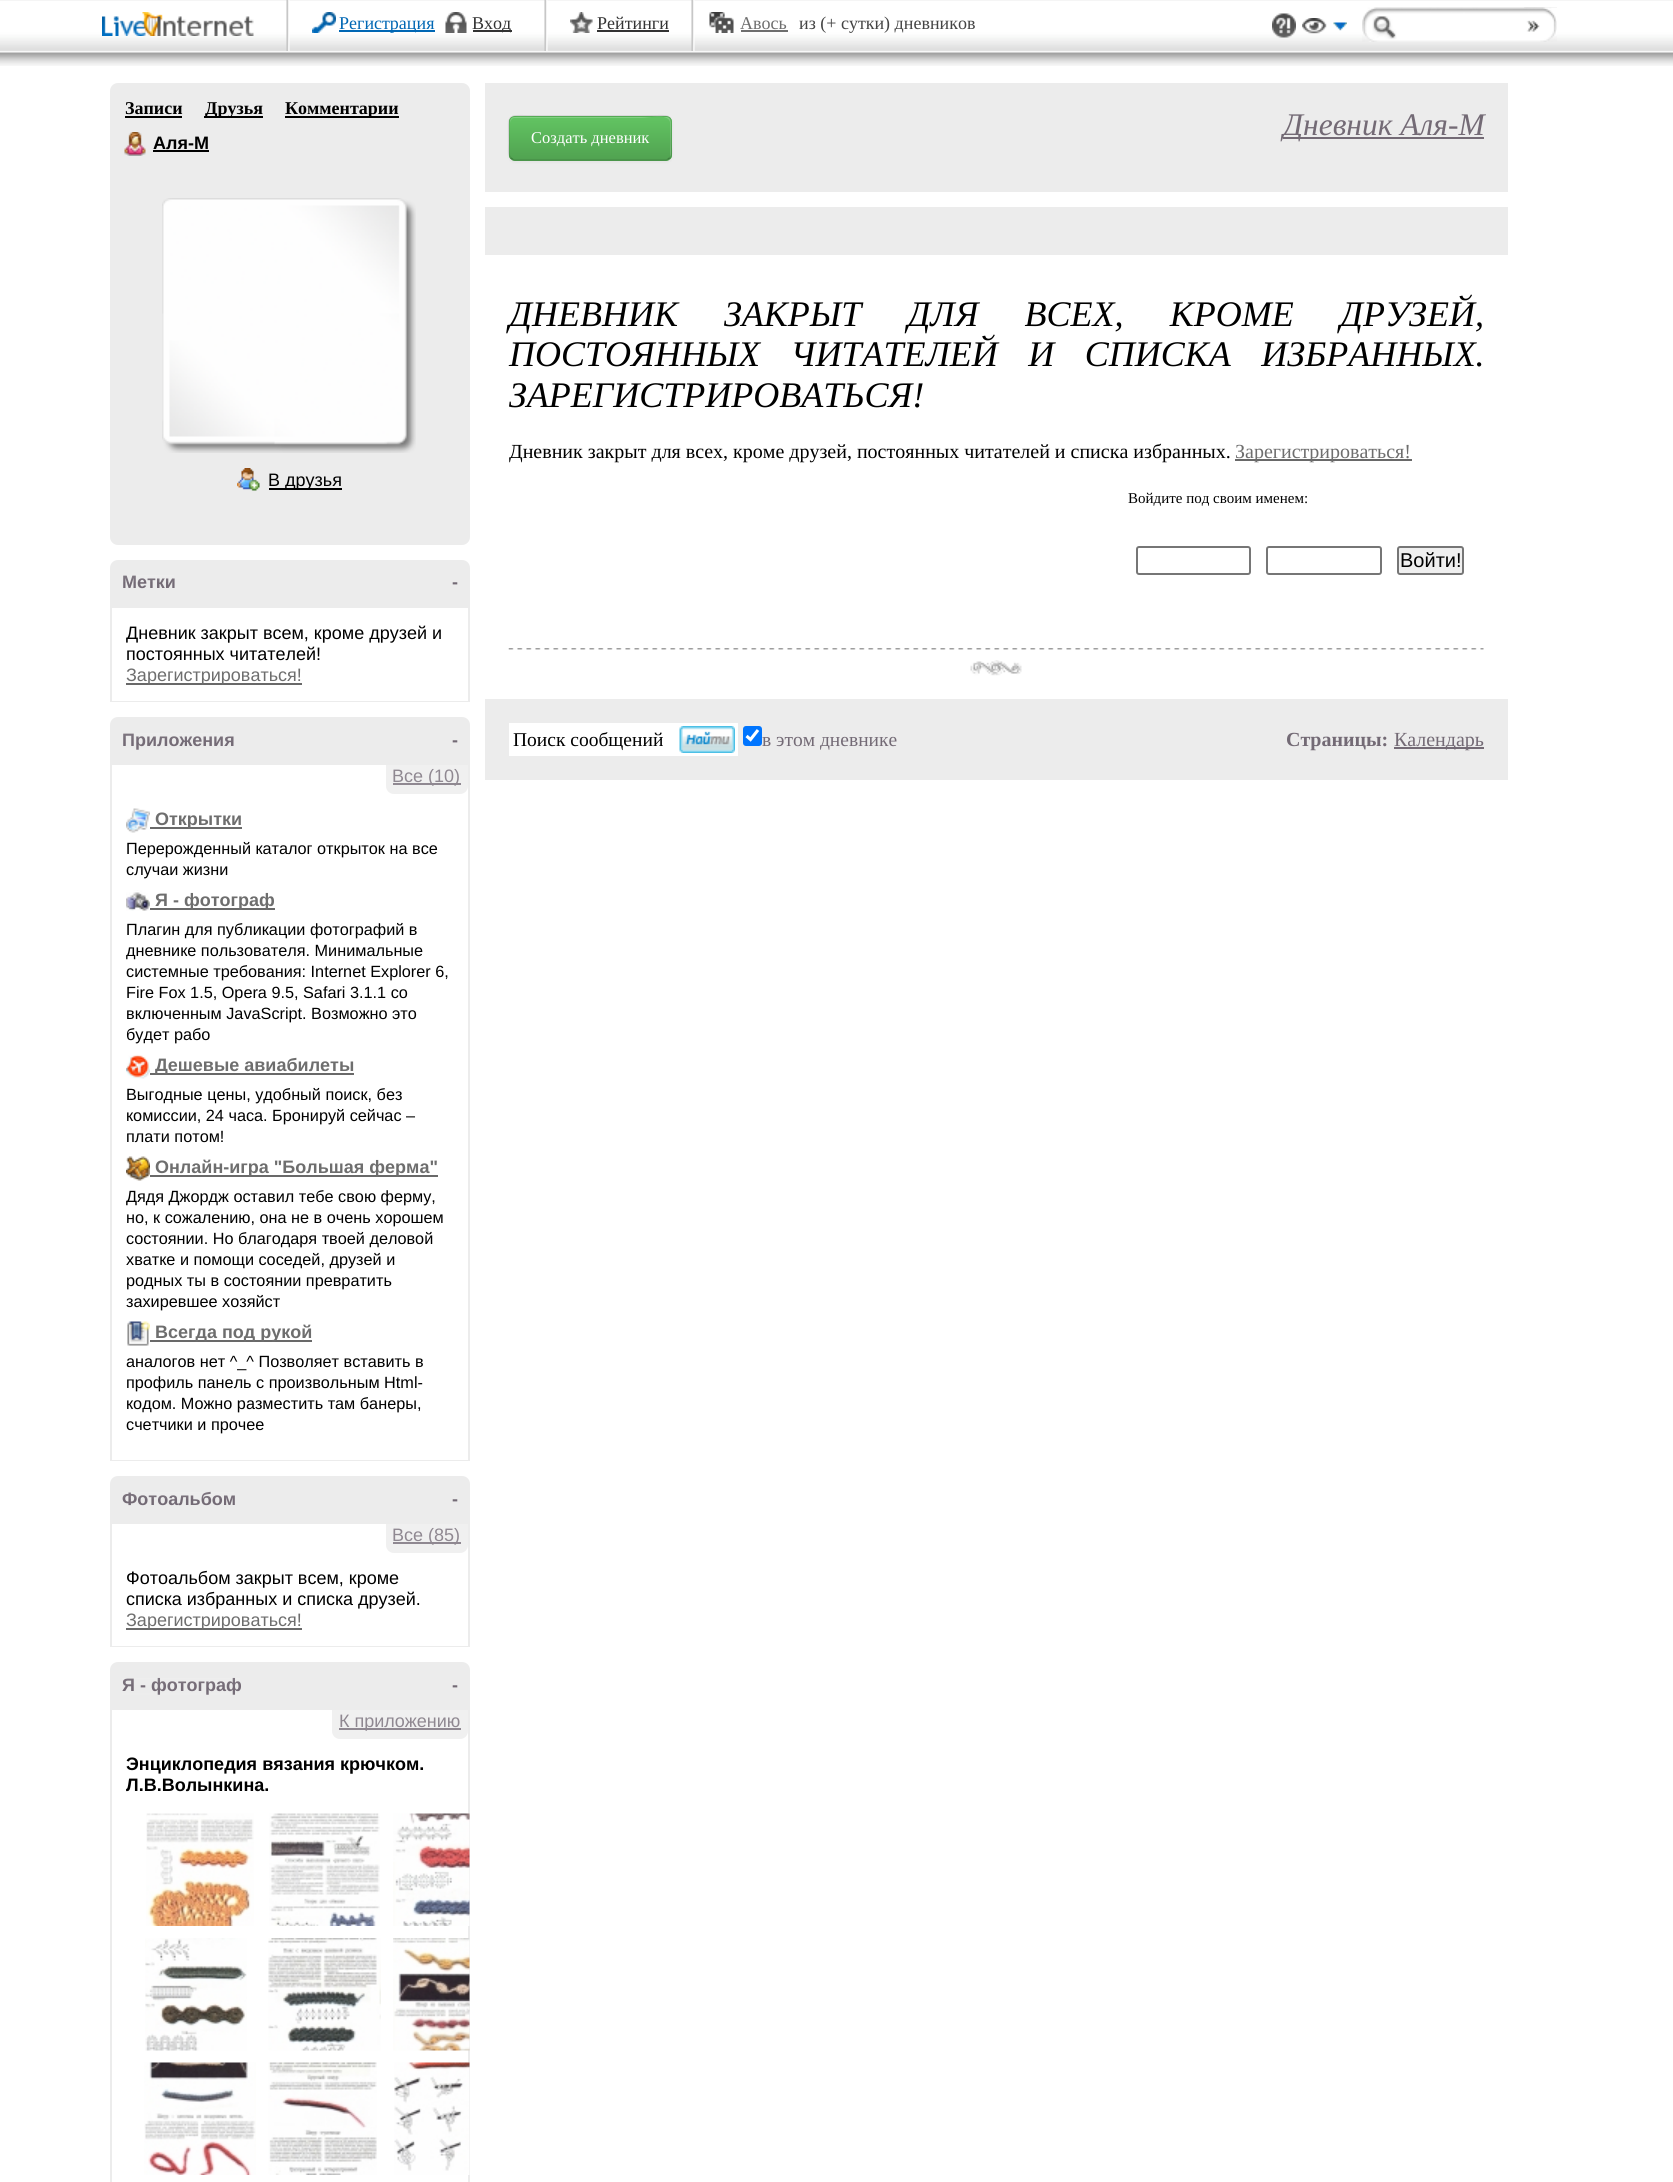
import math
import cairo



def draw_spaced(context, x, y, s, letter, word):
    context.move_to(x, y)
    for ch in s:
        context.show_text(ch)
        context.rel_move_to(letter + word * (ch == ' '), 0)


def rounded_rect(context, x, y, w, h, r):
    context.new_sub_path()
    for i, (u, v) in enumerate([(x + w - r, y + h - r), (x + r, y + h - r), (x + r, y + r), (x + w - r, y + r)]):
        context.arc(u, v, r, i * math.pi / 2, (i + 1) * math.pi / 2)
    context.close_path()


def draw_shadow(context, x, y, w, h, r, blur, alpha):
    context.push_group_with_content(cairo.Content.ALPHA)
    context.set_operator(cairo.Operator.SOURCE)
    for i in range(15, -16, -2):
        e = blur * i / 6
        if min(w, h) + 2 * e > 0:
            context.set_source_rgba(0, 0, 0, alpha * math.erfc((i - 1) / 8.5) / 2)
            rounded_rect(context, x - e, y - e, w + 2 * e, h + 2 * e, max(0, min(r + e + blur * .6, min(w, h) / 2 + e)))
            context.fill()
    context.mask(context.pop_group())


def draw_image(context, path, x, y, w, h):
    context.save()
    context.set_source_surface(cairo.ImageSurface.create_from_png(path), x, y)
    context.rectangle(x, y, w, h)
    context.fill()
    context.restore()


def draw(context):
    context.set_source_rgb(1, 1, 1)
    context.paint()
    draw_image(context, "images/1.png", 0, 0, 1673, 66)
    draw_image(context, "images/2.png", 102, 12, 152, 24)
    draw_image(context, "images/3.png", 286, 0, 4, 51)
    draw_image(context, "images/4.png", 312, 12, 24, 21)
    context.set_source_rgb(0, 103 / 255, 180 / 255)
    context.rectangle(339, 30, 96, 2)
    context.fill()
    draw_image(context, "images/5.png", 445, 12, 22, 21)
    context.set_source_rgb(51 / 255, 51 / 255, 51 / 255)
    context.rectangle(473, 30, 39, 2)
    context.fill()
    draw_image(context, "images/3.png", 544, 0, 4, 51)
    draw_image(context, "images/6.png", 570, 12, 23, 21)
    context.rectangle(597, 30, 72, 2)
    context.fill()
    draw_image(context, "images/3.png", 691, 0, 4, 51)
    draw_image(context, "images/7.png", 709, 12, 25, 21)
    context.set_source_rgb(110 / 255, 110 / 255, 110 / 255)
    context.rectangle(741, 30, 47, 2)
    context.fill()
    draw_image(context, "images/8.png", 1272, 13, 24, 25)
    draw_image(context, "images/9.png", 1302, 18, 45, 16)
    draw_image(context, "images/10.png", 1362, 7, 195, 35)
    draw_image(context, "images/11.png", 1524, 7, 33, 35)
    context.set_source_rgb(236 / 255, 236 / 255, 236 / 255)
    rounded_rect(context, 110, 83, 360, 462, 8)
    context.fill()
    context.set_source_rgb(0, 0, 0)
    context.rectangle(125, 116, 57, 2)
    context.fill()
    context.rectangle(204, 116, 59, 2)
    context.fill()
    context.rectangle(285, 116, 114, 2)
    context.fill()
    draw_image(context, "images/12.png", 124, 132, 22, 24)
    context.rectangle(153, 150, 56, 2)
    context.fill()
    draw_image(context, "images/13.png", 162, 198, 254, 255)
    draw_image(context, "images/14.png", 237, 468, 23, 23)
    context.rectangle(269, 488, 73, 2)
    context.fill()
    context.set_source_rgb(236 / 255, 236 / 255, 236 / 255)
    context.new_path()
    context.move_to(118, 561)
    context.line_to(462, 561)
    context.curve_to(466, 561, 469, 564, 469, 568)
    context.line_to(469, 607)
    context.line_to(111, 607)
    context.line_to(111, 568)
    context.curve_to(111, 564, 114, 561, 118, 561)
    context.close_path()
    context.fill_preserve()
    context.stroke()
    context.rectangle(468, 608, 2, 94)
    context.fill()
    context.rectangle(110, 701, 360, 1)
    context.fill()
    context.rectangle(110, 608, 2, 94)
    context.fill()
    context.set_source_rgb(105 / 255, 105 / 255, 105 / 255)
    context.rectangle(126, 683, 176, 2)
    context.fill()
    context.set_source_rgb(236 / 255, 236 / 255, 236 / 255)
    context.new_path()
    context.move_to(118, 718)
    context.line_to(462, 718)
    context.curve_to(466, 718, 469, 721, 469, 725)
    context.line_to(469, 764)
    context.line_to(111, 764)
    context.line_to(111, 725)
    context.curve_to(111, 721, 114, 718, 118, 718)
    context.close_path()
    context.fill_preserve()
    context.stroke()
    context.rectangle(468, 765, 2, 696)
    context.fill()
    context.rectangle(110, 1460, 360, 1)
    context.fill()
    context.rectangle(110, 765, 2, 696)
    context.fill()
    context.set_source_rgb(240 / 255, 240 / 255, 240 / 255)
    context.new_path()
    context.move_to(386, 765)
    context.line_to(468, 765)
    context.line_to(468, 786)
    context.curve_to(468, 790.5, 464.5, 794, 460, 794)
    context.line_to(394, 794)
    context.curve_to(389.5, 794, 386, 790.5, 386, 786)
    context.close_path()
    context.fill()
    context.set_source_rgb(143 / 255, 136 / 255, 145 / 255)
    context.rectangle(393, 783, 68, 2)
    context.fill()
    draw_image(context, "images/17.png", 126, 808, 24, 25)
    context.set_source_rgb(105 / 255, 105 / 255, 105 / 255)
    context.rectangle(150, 827, 92, 2)
    context.fill()
    draw_image(context, "images/18.png", 126, 890, 24, 21)
    context.rectangle(150, 908, 125, 2)
    context.fill()
    draw_image(context, "images/19.png", 126, 1054, 24, 25)
    context.rectangle(150, 1073, 204, 2)
    context.fill()
    draw_image(context, "images/20.png", 126, 1156, 24, 25)
    context.rectangle(150, 1175, 288, 2)
    context.fill()
    draw_image(context, "images/21.png", 127, 1321, 23, 25)
    context.rectangle(150, 1340, 162, 2)
    context.fill()
    context.set_source_rgb(236 / 255, 236 / 255, 236 / 255)
    context.new_path()
    context.move_to(118, 1477)
    context.line_to(462, 1477)
    context.curve_to(466, 1477, 469, 1480, 469, 1484)
    context.line_to(469, 1523)
    context.line_to(111, 1523)
    context.line_to(111, 1484)
    context.curve_to(111, 1480, 114, 1477, 118, 1477)
    context.close_path()
    context.fill_preserve()
    context.stroke()
    context.rectangle(468, 1524, 2, 123)
    context.fill()
    context.rectangle(110, 1646, 360, 1)
    context.fill()
    context.rectangle(110, 1524, 2, 123)
    context.fill()
    context.set_source_rgb(240 / 255, 240 / 255, 240 / 255)
    context.new_path()
    context.move_to(386, 1524)
    context.line_to(468, 1524)
    context.line_to(468, 1545)
    context.curve_to(468, 1549.5, 464.5, 1553, 460, 1553)
    context.line_to(394, 1553)
    context.curve_to(389.5, 1553, 386, 1549.5, 386, 1545)
    context.close_path()
    context.fill()
    context.set_source_rgb(143 / 255, 136 / 255, 145 / 255)
    context.rectangle(393, 1542, 68, 2)
    context.fill()
    context.set_source_rgb(105 / 255, 105 / 255, 105 / 255)
    context.rectangle(126, 1628, 176, 2)
    context.fill()
    context.set_source_rgb(236 / 255, 236 / 255, 236 / 255)
    context.new_path()
    context.move_to(118, 1663)
    context.line_to(462, 1663)
    context.curve_to(466, 1663, 469, 1666, 469, 1670)
    context.line_to(469, 1709)
    context.line_to(111, 1709)
    context.line_to(111, 1670)
    context.curve_to(111, 1666, 114, 1663, 118, 1663)
    context.close_path()
    context.fill_preserve()
    context.stroke()
    context.rectangle(468, 1710, 2, 472)
    context.fill()
    context.rectangle(110, 1710, 2, 472)
    context.fill()
    context.set_source_rgb(240 / 255, 240 / 255, 240 / 255)
    context.new_path()
    context.move_to(332, 1710)
    context.line_to(468, 1710)
    context.line_to(468, 1731)
    context.curve_to(468, 1735.5, 464.5, 1739, 460, 1739)
    context.line_to(340, 1739)
    context.curve_to(335.5, 1739, 332, 1735.5, 332, 1731)
    context.close_path()
    context.fill()
    context.set_source_rgb(143 / 255, 136 / 255, 145 / 255)
    context.rectangle(339, 1728, 122, 2)
    context.fill()
    draw_image(context, "images/24.png", 146, 1813, 108, 113)
    draw_image(context, "images/25.png", 269, 1813, 111, 113)
    draw_image(context, "images/26.png", 393, 1813, 77, 113)
    draw_image(context, "images/27.png", 145, 1938, 102, 113)
    draw_image(context, "images/28.png", 268, 1938, 113, 113)
    draw_image(context, "images/29.png", 393, 1938, 77, 113)
    draw_image(context, "images/30.png", 144, 2062, 112, 113)
    draw_image(context, "images/31.png", 268, 2062, 109, 113)
    draw_image(context, "images/32.png", 394, 2062, 76, 113)
    context.set_source_rgb(236 / 255, 236 / 255, 236 / 255)
    context.rectangle(485, 83, 1023, 109)
    context.fill()
    context.set_source_rgb(0, 0, 0)
    draw_shadow(context, 509, 117, 163, 45, 6, 1.5, 0.05)
    context.set_source_rgb(91 / 255, 183 / 255, 91 / 255)
    rounded_rect(context, 509, 116, 163, 45, 6)
    context.fill()
    context.save()
    rounded_rect(context, 509, 116, 163, 45, 6)
    context.clip()
    gradient = cairo.LinearGradient(590, 117, 590, 159)
    gradient.add_color_stop_rgba(0, 98 / 255, 196 / 255, 98 / 255, 1)
    gradient.add_color_stop_rgba(1, 81 / 255, 163 / 255, 81 / 255, 1)
    context.set_source(gradient)
    context.rectangle(509, 117, 163, 42)
    context.fill()
    context.restore()
    context.set_source_rgba(1, 1, 1, 0.2)
    context.new_path()
    context.move_to(514, 118)
    context.line_to(641, 118)
    context.curve_to(648, 118, 668, 113, 670, 122)
    context.line_to(670, 157)
    context.curve_to(671, 156, 671, 155, 671, 154)
    context.line_to(671, 122)
    context.curve_to(671, 119, 669, 117, 666, 117)
    context.line_to(515, 117)
    context.curve_to(512, 117, 510, 119, 510, 122)
    context.line_to(510, 123)
    context.curve_to(510, 121, 512, 118, 514, 118)
    context.close_path()
    context.fill()
    context.new_path()
    context.move_to(669.5, 158)
    context.curve_to(668.5, 159, 667.5, 160, 666, 160)
    context.line_to(514.5, 160)
    context.curve_to(513, 160, 512, 159, 511, 158)
    context.set_source_rgba(0, 0, 0, 0.25)
    context.set_line_width(1.5)
    context.stroke()
    context.new_path()
    context.move_to(511, 158)
    context.curve_to(507.5, 155, 509, 147, 509, 143.5)
    context.curve_to(509, 110.5, 504, 116, 540, 116)
    context.line_to(641, 116)
    context.curve_to(676.5, 116, 671, 110.5, 671, 143.5)
    context.curve_to(671, 147, 673, 155, 669.5, 158)
    context.set_source_rgba(0, 0, 0, 0.1)
    context.stroke()
    context.set_source_rgb(115 / 255, 106 / 255, 117 / 255)
    context.rectangle(1283, 137, 201, 2)
    context.fill()
    context.set_source_rgb(236 / 255, 236 / 255, 236 / 255)
    context.rectangle(485, 207, 1023, 48)
    context.fill()
    draw_image(context, "images/33.png", 970, 660, 52, 16)
    draw_image(context, "images/34.png", 508, 648, 976, 2)
    context.set_source_rgb(105 / 255, 105 / 255, 105 / 255)
    context.rectangle(1235, 459, 177, 2)
    context.fill()
    rounded_rect(context, 1137, 547, 113, 27, 2)
    context.set_source_rgb(118 / 255, 118 / 255, 118 / 255)
    context.set_line_width(2)
    context.stroke()
    rounded_rect(context, 1267, 547, 114, 27, 2)
    context.stroke()
    context.set_source_rgb(239 / 255, 239 / 255, 239 / 255)
    rounded_rect(context, 1398, 547, 65, 27, 2)
    context.fill_preserve()
    context.set_source_rgb(118 / 255, 118 / 255, 118 / 255)
    context.stroke()
    context.set_source_rgb(236 / 255, 236 / 255, 236 / 255)
    context.rectangle(485, 699, 1023, 81)
    context.fill()
    context.set_source_rgb(1, 1, 1)
    context.rectangle(509, 723, 229, 33)
    context.fill()
    draw_image(context, "images/35.png", 679, 726, 56, 27)
    context.set_source_rgb(0, 117 / 255, 1)
    rounded_rect(context, 743, 726, 19, 20, 3)
    context.fill()
    context.new_path()
    context.move_to(746.5, 736)
    context.line_to(750.5, 739.5)
    context.line_to(758, 730)
    context.set_source_rgb(1, 1, 1)
    context.set_line_width(3.1)
    context.stroke()
    context.set_source_rgb(115 / 255, 106 / 255, 117 / 255)
    context.rectangle(1394, 747, 90, 2)
    context.fill()
    context.select_font_face("Liberation Serif")
    context.set_font_size(18)
    context.set_source_rgb(0, 103 / 255, 180 / 255)
    context.move_to(339, 29)
    context.show_text("Регистрация")
    context.set_source_rgb(51 / 255, 51 / 255, 51 / 255)
    context.move_to(472, 29)
    context.show_text("Вход")
    context.move_to(597, 29)
    context.show_text("Рейтинги")
    context.set_source_rgb(110 / 255, 110 / 255, 110 / 255)
    context.move_to(740, 29)
    context.show_text("Авось")
    context.set_source_rgb(68 / 255, 68 / 255, 68 / 255)
    context.move_to(799, 29)
    context.show_text("из (+ сутки) дневников")
    context.select_font_face("Liberation Serif", cairo.FontSlant.NORMAL, cairo.FontWeight.BOLD)
    context.set_source_rgb(0, 0, 0)
    context.move_to(125, 114)
    context.show_text("Записи")
    context.move_to(205, 114)
    context.show_text("Друзья")
    context.move_to(285, 114)
    context.show_text("Комментарии")
    context.select_font_face("Liberation Sans", cairo.FontSlant.NORMAL, cairo.FontWeight.BOLD)
    context.move_to(153, 149)
    context.show_text("Аля-М")
    context.select_font_face("Liberation Sans")
    context.move_to(268, 486)
    context.show_text("В друзья")
    context.select_font_face("Liberation Sans", cairo.FontSlant.NORMAL, cairo.FontWeight.BOLD)
    context.set_source_rgb(115 / 255, 106 / 255, 117 / 255)
    context.move_to(122, 588)
    context.show_text("Метки")
    context.move_to(452, 588)
    context.show_text("-")
    draw_image(context, "images/15.png", 122, 575, 52, 7)
    context.select_font_face("Liberation Sans")
    context.set_source_rgb(0, 0, 0)
    context.move_to(126, 639)
    context.show_text("Дневник закрыт всем, кроме друзей и")
    context.move_to(126, 660)
    context.show_text("постоянных читателей!")
    context.set_source_rgb(110 / 255, 110 / 255, 110 / 255)
    context.move_to(126, 681)
    context.show_text("Зарегистрироваться!")
    context.select_font_face("Liberation Sans", cairo.FontSlant.NORMAL, cairo.FontWeight.BOLD)
    context.set_source_rgb(115 / 255, 106 / 255, 117 / 255)
    context.move_to(122, 746)
    context.show_text("Приложения")
    context.move_to(452, 746)
    context.show_text("-")
    draw_image(context, "images/16.png", 122, 733, 111, 17)
    context.select_font_face("Liberation Sans")
    context.set_source_rgb(143 / 255, 136 / 255, 145 / 255)
    context.move_to(392, 782)
    context.show_text("Все (10)")
    context.select_font_face("Liberation Sans", cairo.FontSlant.NORMAL, cairo.FontWeight.BOLD)
    context.set_source_rgb(110 / 255, 110 / 255, 110 / 255)
    context.move_to(155, 825)
    context.show_text("Открытки")
    context.select_font_face("Liberation Sans")
    context.set_font_size(16.25)
    context.set_source_rgb(0, 0, 0)
    context.move_to(126, 854)
    context.show_text("Перерожденный каталог открыток на все")
    context.move_to(126, 875)
    context.show_text("случаи жизни")
    context.select_font_face("Liberation Sans", cairo.FontSlant.NORMAL, cairo.FontWeight.BOLD)
    context.set_font_size(18)
    context.set_source_rgb(110 / 255, 110 / 255, 110 / 255)
    context.move_to(155, 906)
    context.show_text("Я - фотограф")
    context.select_font_face("Liberation Sans")
    context.set_font_size(16.25)
    context.set_source_rgb(0, 0, 0)
    context.move_to(126, 935)
    context.show_text("Плагин для публикации фотографий в")
    context.move_to(126, 956)
    context.show_text("дневнике пользователя. Минимальные")
    context.move_to(126, 977)
    context.show_text("системные требования: Internet Explorer 6,")
    context.move_to(126, 998)
    context.show_text("Fire Fox 1.5, Opera 9.5, Safari 3.1.1 со")
    context.move_to(126, 1019)
    context.show_text("включенным JavaScript. Возможно это")
    context.move_to(126, 1040)
    context.show_text("будет рабо")
    context.select_font_face("Liberation Sans", cairo.FontSlant.NORMAL, cairo.FontWeight.BOLD)
    context.set_font_size(18)
    context.set_source_rgb(110 / 255, 110 / 255, 110 / 255)
    context.move_to(155, 1071)
    context.show_text("Дешевые авиабилеты")
    context.select_font_face("Liberation Sans")
    context.set_font_size(16.25)
    context.set_source_rgb(0, 0, 0)
    context.move_to(126, 1100)
    context.show_text("Выгодные цены, удобный поиск, без")
    context.move_to(126, 1121)
    context.show_text("комиссии, 24 часа. Бронируй сейчас –")
    context.move_to(126, 1142)
    context.show_text("плати потом!")
    context.select_font_face("Liberation Sans", cairo.FontSlant.NORMAL, cairo.FontWeight.BOLD)
    context.set_font_size(18)
    context.set_source_rgb(110 / 255, 110 / 255, 110 / 255)
    context.move_to(155, 1173)
    context.show_text("Онлайн-игра \"Большая ферма\"")
    context.select_font_face("Liberation Sans")
    context.set_font_size(16.25)
    context.set_source_rgb(0, 0, 0)
    context.move_to(126, 1202)
    context.show_text("Дядя Джордж оставил тебе свою ферму,")
    context.move_to(126, 1223)
    context.show_text("но, к сожалению, она не в очень хорошем")
    context.move_to(126, 1244)
    context.show_text("состоянии. Но благодаря твоей деловой")
    context.move_to(126, 1265)
    context.show_text("хватке и помощи соседей, друзей и")
    context.move_to(126, 1286)
    context.show_text("родных ты в состоянии превратить")
    context.move_to(126, 1307)
    context.show_text("захиревшее хозяйст")
    context.select_font_face("Liberation Sans", cairo.FontSlant.NORMAL, cairo.FontWeight.BOLD)
    context.set_font_size(18)
    context.set_source_rgb(110 / 255, 110 / 255, 110 / 255)
    context.move_to(155, 1338)
    context.show_text("Всегда под рукой")
    context.select_font_face("Liberation Sans")
    context.set_font_size(16.25)
    context.set_source_rgb(0, 0, 0)
    context.move_to(126, 1367)
    context.show_text("аналогов нет ^_^ Позволяет вставить в")
    context.move_to(126, 1388)
    context.show_text("профиль панель с произвольным Html-")
    context.move_to(126, 1409)
    context.show_text("кодом. Можно разместить там банеры,")
    context.move_to(126, 1430)
    context.show_text("счетчики и прочее")
    context.select_font_face("Liberation Sans", cairo.FontSlant.NORMAL, cairo.FontWeight.BOLD)
    context.set_font_size(18)
    context.set_source_rgb(115 / 255, 106 / 255, 117 / 255)
    context.move_to(122, 1505)
    context.show_text("Фотоальбом")
    context.move_to(452, 1505)
    context.show_text("-")
    draw_image(context, "images/22.png", 122, 1492, 112, 7)
    context.select_font_face("Liberation Sans")
    context.set_source_rgb(143 / 255, 136 / 255, 145 / 255)
    context.move_to(392, 1541)
    context.show_text("Все (85)")
    context.set_source_rgb(0, 0, 0)
    context.move_to(126, 1584)
    context.show_text("Фотоальбом закрыт всем, кроме")
    context.move_to(126, 1605)
    context.show_text("списка избранных и списка друзей.")
    context.set_source_rgb(110 / 255, 110 / 255, 110 / 255)
    context.move_to(126, 1626)
    context.show_text("Зарегистрироваться!")
    context.select_font_face("Liberation Sans", cairo.FontSlant.NORMAL, cairo.FontWeight.BOLD)
    context.set_source_rgb(115 / 255, 106 / 255, 117 / 255)
    context.move_to(122, 1691)
    context.show_text("Я - фотограф")
    context.move_to(452, 1691)
    context.show_text("-")
    draw_image(context, "images/23.png", 122, 1678, 118, 17)
    context.select_font_face("Liberation Sans")
    context.set_source_rgb(143 / 255, 136 / 255, 145 / 255)
    context.move_to(339, 1727)
    context.show_text("К приложению")
    context.select_font_face("Liberation Sans", cairo.FontSlant.NORMAL, cairo.FontWeight.BOLD)
    context.set_source_rgb(0, 0, 0)
    context.move_to(126, 1770)
    context.show_text("Энциклопедия вязания крючком.")
    context.move_to(126, 1791)
    context.show_text("Л.В.Волынкина.")
    context.select_font_face("Liberation Serif")
    context.set_font_size(16.5)
    context.set_source_rgb(1, 1, 1)
    context.move_to(531, 143)
    context.show_text("Создать дневник")
    context.select_font_face("Liberation Serif", cairo.FontSlant.ITALIC)
    context.set_font_size(31.5)
    context.set_source_rgb(115 / 255, 106 / 255, 117 / 255)
    context.move_to(1283, 135)
    context.show_text("Дневник Аля-М")
    context.set_font_size(36)
    context.set_source_rgb(0, 0, 0)
    draw_spaced(context, 509, 326, "ДНЕВНИК ЗАКРЫТ ДЛЯ ВСЕХ, КРОМЕ ДРУЗЕЙ,", 0, 37.25)
    draw_spaced(context, 509, 366, "ПОСТОЯННЫХ ЧИТАТЕЛЕЙ И СПИСКА ИЗБРАННЫХ.", 0, 21.5)
    context.move_to(509, 407)
    context.show_text("ЗАРЕГИСТРИРОВАТЬСЯ!")
    context.select_font_face("Liberation Serif")
    context.set_font_size(20)
    context.move_to(509, 458)
    context.show_text("Дневник закрыт для всех, кроме друзей, постоянных читателей и списка избранных.")
    context.set_source_rgb(110 / 255, 110 / 255, 110 / 255)
    context.move_to(1235, 458)
    context.show_text("Зарегистрироваться!")
    context.set_font_size(15)
    context.set_source_rgb(0, 0, 0)
    context.move_to(1128, 503)
    context.show_text("Войдите под своим именем:")
    context.select_font_face("Liberation Sans")
    context.set_font_size(20)
    context.move_to(1400, 567)
    context.show_text("Войти!")
    context.select_font_face("Liberation Serif")
    context.set_font_size(19.5)
    context.move_to(513, 746)
    context.show_text("Поиск сообщений")
    context.set_source_rgb(115 / 255, 106 / 255, 117 / 255)
    context.move_to(762, 746)
    context.show_text("в этом дневнике")
    context.select_font_face("Liberation Serif", cairo.FontSlant.NORMAL, cairo.FontWeight.BOLD)
    context.set_font_size(20)
    context.move_to(1286, 746)
    context.show_text("Страницы:")
    context.select_font_face("Liberation Serif")
    context.move_to(1394, 746)
    context.show_text("Календарь")


surface = cairo.ImageSurface(cairo.Format.RGB24, 1673, 2182)
context = cairo.Context(surface)
options = cairo.FontOptions()
options.set_hint_metrics(cairo.HintMetrics.OFF)
options.set_hint_style(cairo.HintStyle.NONE)
context.set_font_options(options)
context.set_miter_limit(4)
draw(context)
surface.write_to_png("out.png")
